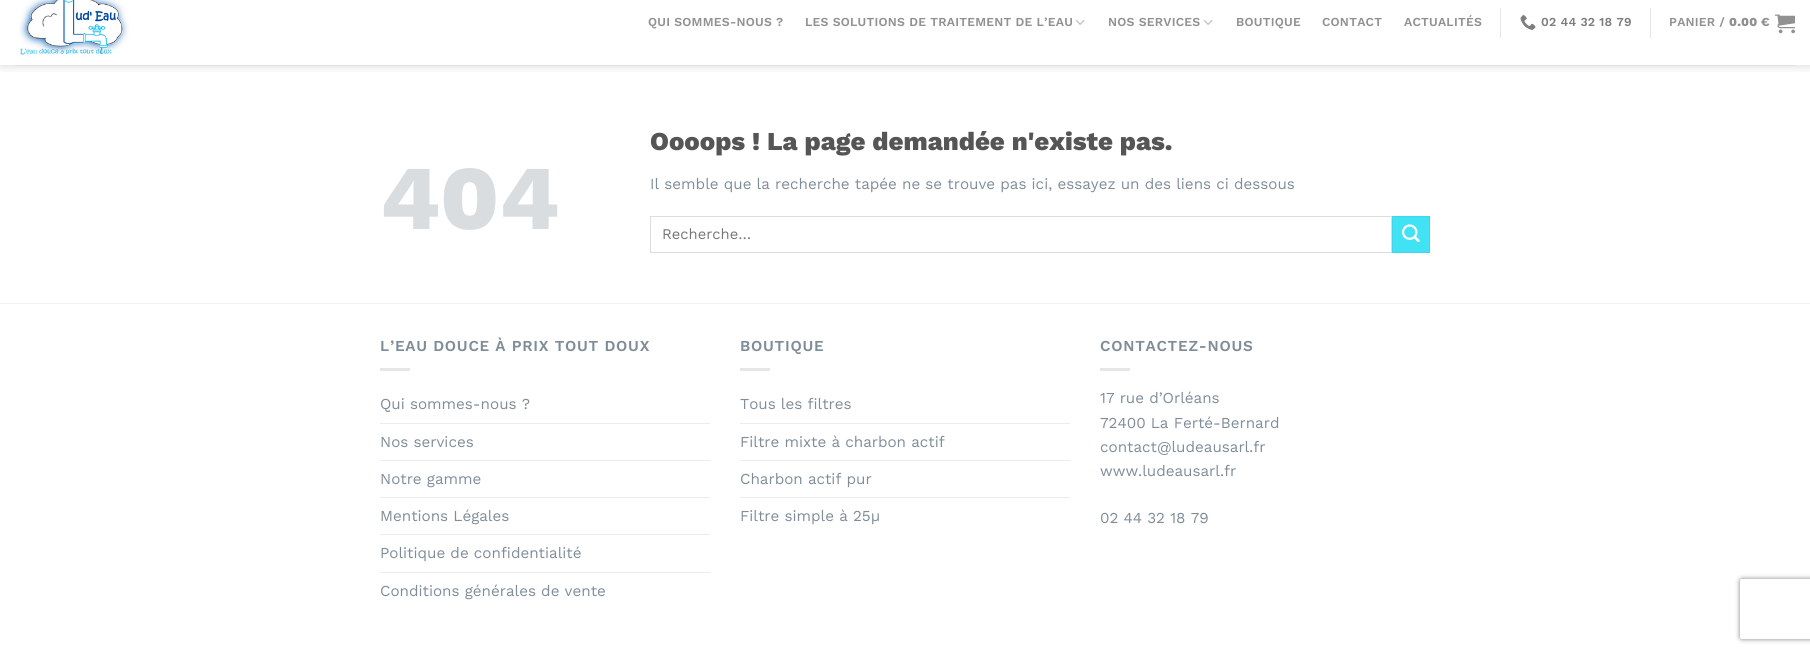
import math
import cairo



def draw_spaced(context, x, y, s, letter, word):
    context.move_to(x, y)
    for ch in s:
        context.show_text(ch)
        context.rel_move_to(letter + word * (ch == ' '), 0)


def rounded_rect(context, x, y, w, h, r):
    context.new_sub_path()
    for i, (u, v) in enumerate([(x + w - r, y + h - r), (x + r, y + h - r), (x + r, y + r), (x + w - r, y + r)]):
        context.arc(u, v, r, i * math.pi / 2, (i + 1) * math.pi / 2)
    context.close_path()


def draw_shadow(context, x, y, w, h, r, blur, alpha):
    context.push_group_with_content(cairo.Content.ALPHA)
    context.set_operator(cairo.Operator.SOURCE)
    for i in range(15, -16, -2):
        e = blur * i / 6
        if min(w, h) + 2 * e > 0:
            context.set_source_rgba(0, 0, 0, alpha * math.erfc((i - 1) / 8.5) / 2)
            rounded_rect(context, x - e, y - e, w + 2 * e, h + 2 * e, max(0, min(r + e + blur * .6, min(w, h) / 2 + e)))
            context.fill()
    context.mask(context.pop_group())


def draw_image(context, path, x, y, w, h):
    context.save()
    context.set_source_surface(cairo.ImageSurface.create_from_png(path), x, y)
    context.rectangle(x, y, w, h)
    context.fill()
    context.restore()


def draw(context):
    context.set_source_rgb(1, 1, 1)
    context.paint()
    context.save()
    context.rectangle(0, 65, 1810, 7)
    context.clip()
    context.set_source_rgb(0, 0, 0)
    draw_shadow(context, 1, -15, 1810, 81, 0, 5, 0.15)
    context.restore()
    draw_image(context, "images/1.png", 19, 0, 110, 55)
    draw_image(context, "images/2.png", 1075, 20, 10, 5)
    draw_image(context, "images/2.png", 1203, 20, 10, 5)
    context.set_source_rgb(230 / 255, 230 / 255, 230 / 255)
    context.rectangle(1500, 8, 1, 30)
    context.fill()
    draw_image(context, "images/3.png", 1520, 15, 16, 15)
    context.rectangle(1650, 8, 1, 30)
    context.fill()
    draw_image(context, "images/4.png", 1775, 14, 20, 20)
    context.set_source_rgb(224 / 255, 225 / 255, 226 / 255)
    context.rectangle(15, 65, 1780, 1)
    context.fill()
    context.rectangle(650.5, 216.5, 741, 36)
    context.set_source_rgb(221 / 255, 221 / 255, 221 / 255)
    context.set_line_width(1)
    context.stroke()
    context.set_source_rgb(66 / 255, 226 / 255, 245 / 255)
    context.rectangle(1392.5, 216.5, 37, 36)
    context.fill_preserve()
    context.set_source_rgb(63 / 255, 215 / 255, 233 / 255)
    context.stroke()
    draw_image(context, "images/5.png", 1402, 224, 18, 19)
    context.set_source_rgb(242 / 255, 242 / 255, 242 / 255)
    context.rectangle(0, 303, 1810, 1)
    context.fill()
    context.set_source_rgb(230 / 255, 230 / 255, 230 / 255)
    context.rectangle(380, 368, 30, 3)
    context.fill()
    context.set_source_rgb(236 / 255, 236 / 255, 236 / 255)
    context.rectangle(380, 423, 330, 1)
    context.fill()
    context.rectangle(380, 460, 330, 1)
    context.fill()
    context.rectangle(380, 497, 330, 1)
    context.fill()
    context.rectangle(380, 534, 330, 1)
    context.fill()
    context.rectangle(380, 572, 330, 1)
    context.fill()
    context.set_source_rgb(230 / 255, 230 / 255, 230 / 255)
    context.rectangle(740, 368, 30, 3)
    context.fill()
    context.set_source_rgb(236 / 255, 236 / 255, 236 / 255)
    context.rectangle(740, 423, 330, 1)
    context.fill()
    context.rectangle(740, 460, 330, 1)
    context.fill()
    context.rectangle(740, 497, 330, 1)
    context.fill()
    context.set_source_rgb(230 / 255, 230 / 255, 230 / 255)
    context.rectangle(1100, 368, 30, 3)
    context.fill()
    context.save()
    context.set_fill_rule(cairo.FillRule.EVEN_ODD)
    context.new_path()
    context.move_to(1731, 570)
    context.line_to(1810, 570)
    context.line_to(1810, 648)
    context.line_to(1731, 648)
    context.close_path()
    context.move_to(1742, 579)
    context.line_to(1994, 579)
    context.curve_to(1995, 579, 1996, 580, 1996, 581)
    context.line_to(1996, 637)
    context.curve_to(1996, 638, 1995, 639, 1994, 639)
    context.line_to(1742, 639)
    context.curve_to(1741, 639, 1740, 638, 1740, 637)
    context.line_to(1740, 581)
    context.curve_to(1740, 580, 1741, 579, 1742, 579)
    context.close_path()
    context.clip()
    context.set_source_rgb(128 / 255, 128 / 255, 128 / 255)
    draw_shadow(context, 1740, 579, 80, 60, 2, 2.5, 1)
    context.restore()
    context.select_font_face("Work Sans SemiBold")
    context.set_font_size(12.2)
    context.set_source_rgb(145 / 255, 145 / 255, 145 / 255)
    draw_spaced(context, 648, 26, "QUI SOMMES-NOUS ?", 0.25, 0)
    draw_spaced(context, 805, 26, "LES SOLUTIONS DE TRAITEMENT DE L’EAU", 0.25, 0)
    draw_spaced(context, 1108, 26, "NOS SERVICES", 0.25, 0)
    draw_spaced(context, 1236, 26, "BOUTIQUE", 0.25, 0)
    draw_spaced(context, 1322, 26, "CONTACT", 0.25, 0)
    draw_spaced(context, 1404, 26, "ACTUALITÉS", 0.25, 0)
    context.set_source_rgb(125 / 255, 125 / 255, 125 / 255)
    draw_spaced(context, 1541, 26, "02 44 32 18 79", 0.25, 0)
    context.set_source_rgb(145 / 255, 145 / 255, 145 / 255)
    draw_spaced(context, 1669, 26, "PANIER /", 0.25, 0)
    context.select_font_face("Work Sans ExtraBold")
    draw_spaced(context, 1729, 26, "0.00 €", 0.25, 0)
    context.set_font_size(91)
    context.set_source_rgb(217 / 255, 221 / 255, 224 / 255)
    context.move_to(380, 229)
    context.show_text("404")
    context.set_font_size(25.8)
    context.set_source_rgb(85 / 255, 85 / 255, 85 / 255)
    context.move_to(650, 150)
    context.show_text("Oooops ! La page demandée n'existe pas.")
    context.select_font_face("Work Sans")
    context.set_font_size(15.2)
    context.set_source_rgb(127 / 255, 141 / 255, 153 / 255)
    context.move_to(650, 189)
    context.show_text("Il semble que la recherche tapée ne se trouve pas ici, essayez un des liens ci dessous")
    context.set_font_size(14.75)
    context.set_source_rgb(117 / 255, 117 / 255, 117 / 255)
    context.move_to(662, 239)
    context.show_text("Recherche…")
    context.select_font_face("Work Sans SemiBold")
    context.set_font_size(15.2)
    context.set_source_rgb(127 / 255, 141 / 255, 153 / 255)
    draw_spaced(context, 380, 351, "L’EAU DOUCE À PRIX TOUT DOUX", 0.75, 0)
    context.select_font_face("Work Sans")
    context.move_to(380, 409)
    context.show_text("Qui sommes-nous ?")
    context.move_to(380, 447)
    context.show_text("Nos services")
    context.move_to(380, 484)
    context.show_text("Notre gamme")
    context.move_to(380, 521)
    context.show_text("Mentions Légales")
    context.move_to(380, 558)
    context.show_text("Politique de confidentialité")
    context.move_to(380, 596)
    context.show_text("Conditions générales de vente")
    context.select_font_face("Work Sans SemiBold")
    draw_spaced(context, 740, 351, "BOUTIQUE", 0.75, 0)
    context.select_font_face("Work Sans")
    context.move_to(740, 409)
    context.show_text("Tous les filtres")
    context.move_to(740, 447)
    context.show_text("Filtre mixte à charbon actif")
    context.move_to(740, 484)
    context.show_text("Charbon actif pur")
    context.move_to(740, 521)
    context.show_text("Filtre simple à 25µ")
    context.select_font_face("Work Sans SemiBold")
    draw_spaced(context, 1100, 351, "CONTACTEZ-NOUS", 0.75, 0)
    context.select_font_face("Work Sans")
    context.move_to(1100, 403)
    context.show_text("17 rue d’Orléans")
    context.move_to(1100, 428)
    context.show_text("72400 La Ferté-Bernard")
    context.move_to(1100, 452)
    context.show_text("contact@ludeausarl.fr")
    context.move_to(1100, 476)
    context.show_text("www.ludeausarl.fr")
    context.move_to(1100, 523)
    context.show_text("02 44 32 18 79")


surface = cairo.ImageSurface(cairo.Format.RGB24, 1810, 653)
context = cairo.Context(surface)
options = cairo.FontOptions()
options.set_hint_metrics(cairo.HintMetrics.OFF)
options.set_hint_style(cairo.HintStyle.NONE)
context.set_font_options(options)
context.set_miter_limit(4)
draw(context)
surface.write_to_png("out.png")
